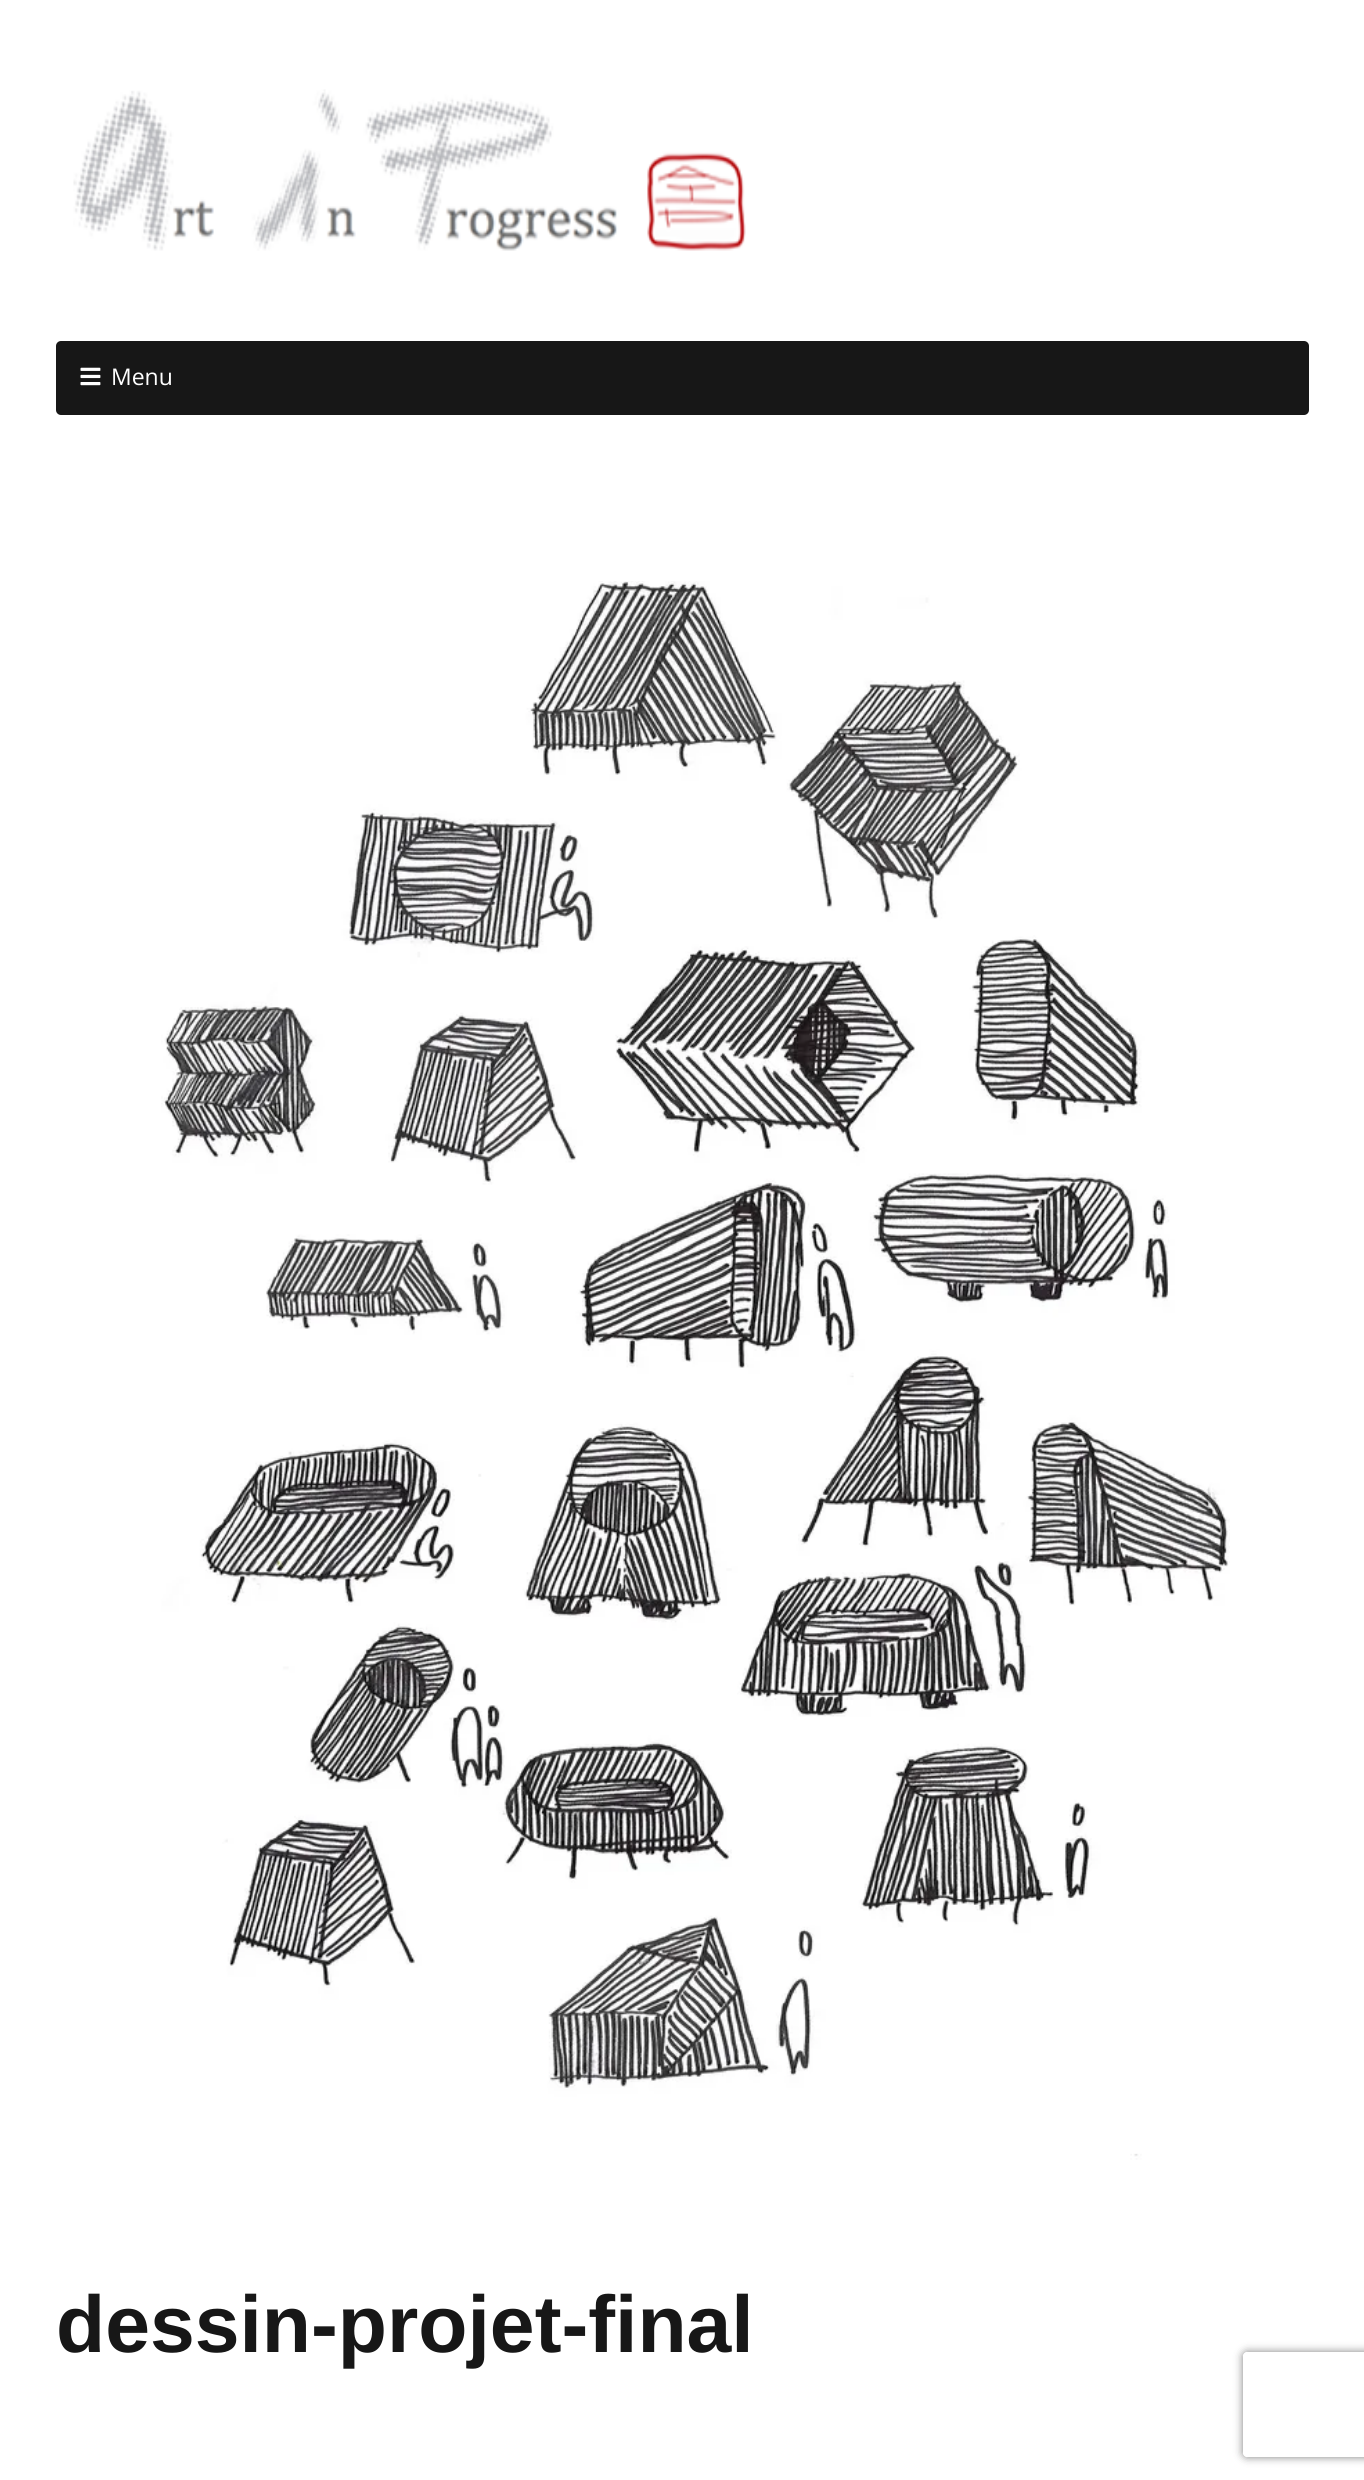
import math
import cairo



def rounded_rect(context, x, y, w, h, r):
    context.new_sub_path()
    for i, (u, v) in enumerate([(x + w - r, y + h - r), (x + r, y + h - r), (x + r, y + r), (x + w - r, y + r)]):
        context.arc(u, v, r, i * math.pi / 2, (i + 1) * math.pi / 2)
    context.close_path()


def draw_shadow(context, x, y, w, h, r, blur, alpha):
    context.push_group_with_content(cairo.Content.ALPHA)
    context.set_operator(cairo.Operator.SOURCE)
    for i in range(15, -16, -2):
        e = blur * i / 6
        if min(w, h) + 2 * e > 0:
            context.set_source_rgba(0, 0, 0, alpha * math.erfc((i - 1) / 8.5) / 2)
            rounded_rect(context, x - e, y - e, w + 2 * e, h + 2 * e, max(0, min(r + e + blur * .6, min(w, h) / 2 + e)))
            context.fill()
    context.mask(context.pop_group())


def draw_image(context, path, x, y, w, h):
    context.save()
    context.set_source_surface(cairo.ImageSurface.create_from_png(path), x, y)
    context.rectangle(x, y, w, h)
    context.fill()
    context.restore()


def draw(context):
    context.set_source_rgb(1, 1, 1)
    context.paint()
    draw_image(context, "images/1.png", 73, 89, 673, 162)
    context.set_source_rgb(23 / 255, 23 / 255, 23 / 255)
    rounded_rect(context, 56, 341, 1253, 74, 5)
    context.fill()
    draw_image(context, "images/2.png", 80, 367, 21, 19)
    draw_image(context, "images/3.png", 161, 581, 1069, 1579)
    context.save()
    context.set_fill_rule(cairo.FillRule.EVEN_ODD)
    context.new_path()
    context.move_to(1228, 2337)
    context.line_to(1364, 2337)
    context.line_to(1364, 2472)
    context.line_to(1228, 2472)
    context.close_path()
    context.move_to(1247, 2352)
    context.line_to(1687, 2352)
    context.curve_to(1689, 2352, 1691, 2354, 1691, 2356)
    context.line_to(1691, 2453)
    context.curve_to(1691, 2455, 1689, 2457, 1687, 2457)
    context.line_to(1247, 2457)
    context.curve_to(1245, 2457, 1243, 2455, 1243, 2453)
    context.line_to(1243, 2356)
    context.curve_to(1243, 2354, 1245, 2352, 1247, 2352)
    context.close_path()
    context.clip()
    context.set_source_rgb(128 / 255, 128 / 255, 128 / 255)
    draw_shadow(context, 1243, 2352, 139, 105, 4, 4.5, 1)
    context.restore()
    context.select_font_face("Open Sans")
    context.set_font_size(23)
    context.set_source_rgb(1, 1, 1)
    context.move_to(111, 385)
    context.show_text("Menu")
    context.select_font_face("Liberation Sans", cairo.FontSlant.NORMAL, cairo.FontWeight.BOLD)
    context.set_font_size(80.5)
    context.set_source_rgb(23 / 255, 23 / 255, 23 / 255)
    context.move_to(56, 2352)
    context.show_text("dessin-projet-final")


surface = cairo.ImageSurface(cairo.Format.RGB24, 1364, 2480)
context = cairo.Context(surface)
options = cairo.FontOptions()
options.set_hint_metrics(cairo.HintMetrics.OFF)
options.set_hint_style(cairo.HintStyle.NONE)
context.set_font_options(options)
context.set_miter_limit(4)
draw(context)
surface.write_to_png("out.png")
